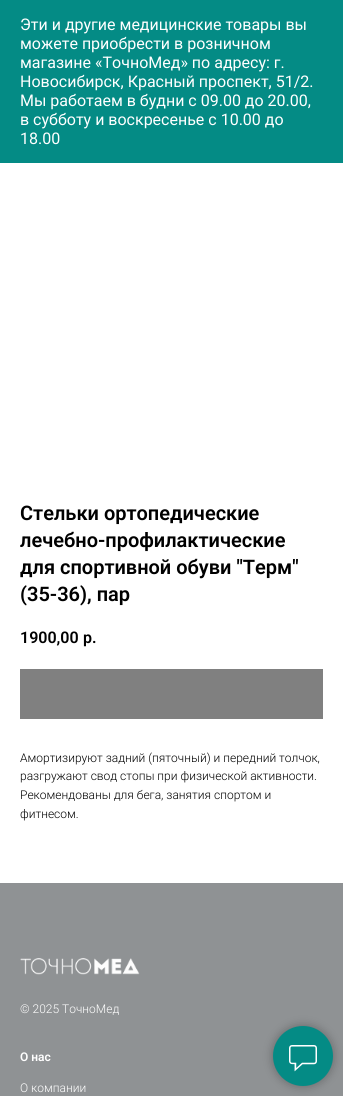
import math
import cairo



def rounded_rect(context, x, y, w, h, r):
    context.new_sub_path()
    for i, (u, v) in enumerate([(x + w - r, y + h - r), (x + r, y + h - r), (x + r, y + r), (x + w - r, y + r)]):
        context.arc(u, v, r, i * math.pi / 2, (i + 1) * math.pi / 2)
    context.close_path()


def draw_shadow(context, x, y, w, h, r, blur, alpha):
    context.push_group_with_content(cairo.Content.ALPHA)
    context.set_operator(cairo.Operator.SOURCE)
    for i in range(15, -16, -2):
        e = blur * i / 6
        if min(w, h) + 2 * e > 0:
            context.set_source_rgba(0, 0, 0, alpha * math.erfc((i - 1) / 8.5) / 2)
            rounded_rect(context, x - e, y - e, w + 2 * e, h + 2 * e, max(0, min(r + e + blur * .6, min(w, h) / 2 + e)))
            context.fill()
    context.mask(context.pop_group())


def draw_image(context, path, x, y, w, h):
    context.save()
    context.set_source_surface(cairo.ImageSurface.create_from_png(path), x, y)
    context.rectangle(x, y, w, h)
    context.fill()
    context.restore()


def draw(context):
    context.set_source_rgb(1, 1, 1)
    context.paint()
    context.set_source_rgb(4 / 255, 139 / 255, 133 / 255)
    context.rectangle(0, 0, 343, 163)
    context.fill()
    context.set_source_rgb(128 / 255, 128 / 255, 128 / 255)
    context.rectangle(20, 669, 303, 50)
    context.fill()
    context.set_source_rgb(143 / 255, 146 / 255, 148 / 255)
    context.rectangle(0, 883, 343, 213)
    context.fill()
    draw_image(context, "images/1.png", 20, 958, 120, 17)
    context.set_source_rgb(0, 0, 0)
    draw_shadow(context, 273, 1026, 60, 60, 30, 5, 0.3)
    context.set_source_rgb(4 / 255, 139 / 255, 133 / 255)
    context.arc(303, 1056, 30, 0, 2 * math.pi)
    context.fill()
    draw_image(context, "images/2.png", 289, 1045, 28, 27)
    context.select_font_face("Roboto")
    context.set_font_size(16)
    context.set_source_rgb(1, 1, 1)
    context.move_to(20, 30)
    context.show_text("Эти и другие медицинские товары вы")
    context.move_to(20, 49)
    context.show_text("можете приобрести в розничном")
    context.move_to(20, 68)
    context.show_text("магазине «ТочноМед» по адресу: г.")
    context.move_to(20, 87)
    context.show_text("Новосибирск, Красный проспект, 51/2.")
    context.move_to(20, 106)
    context.show_text("Мы работаем в будни с 09.00 до 20.00,")
    context.move_to(20, 125)
    context.show_text("в субботу и воскресенье с 10.00 до")
    context.move_to(20, 144)
    context.show_text("18.00")
    context.select_font_face("Roboto SemiBold")
    context.set_font_size(20)
    context.set_source_rgb(0, 0, 0)
    context.move_to(20, 520)
    context.show_text("Стельки ортопедические")
    context.move_to(20, 547)
    context.show_text("лечебно-профилактические")
    context.move_to(20, 574)
    context.show_text("для спортивной обуви \"Терм\"")
    context.move_to(20, 601)
    context.show_text("(35-36), пар")
    context.set_font_size(16)
    context.move_to(20, 643)
    context.show_text("1900,00")
    context.move_to(83, 643)
    context.show_text("р.")
    context.select_font_face("Roboto Light")
    context.set_font_size(12)
    context.move_to(20, 762)
    context.show_text("Амортизируют задний (пяточный) и передний толчок,")
    context.move_to(20, 780)
    context.show_text("разгружают свод стопы при физической активности.")
    context.move_to(20, 799)
    context.show_text("Рекомендованы для бега, занятия спортом и")
    context.move_to(20, 818)
    context.show_text("фитнесом.")
    context.set_source_rgb(1, 1, 1)
    context.move_to(20, 1013)
    context.show_text("© 2025 ТочноМед")
    context.select_font_face("Roboto SemiBold")
    context.move_to(20, 1061)
    context.show_text("О нас")
    context.select_font_face("Roboto Light")
    context.move_to(20, 1092)
    context.show_text("О компании")


surface = cairo.ImageSurface(cairo.Format.RGB24, 343, 1096)
context = cairo.Context(surface)
options = cairo.FontOptions()
options.set_hint_metrics(cairo.HintMetrics.OFF)
options.set_hint_style(cairo.HintStyle.NONE)
context.set_font_options(options)
context.set_miter_limit(4)
draw(context)
surface.write_to_png("out.png")
